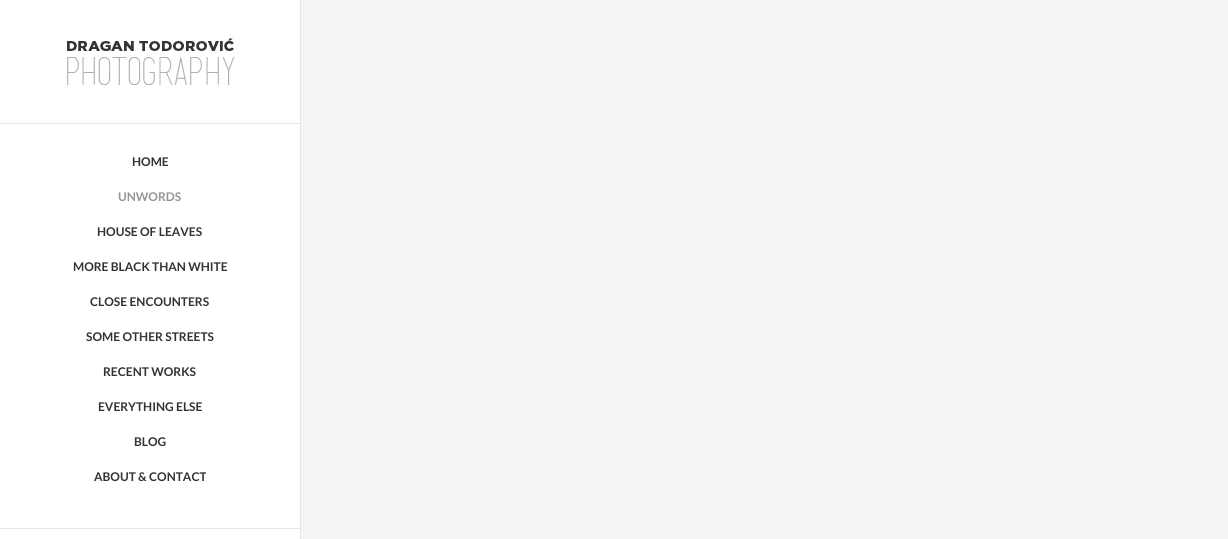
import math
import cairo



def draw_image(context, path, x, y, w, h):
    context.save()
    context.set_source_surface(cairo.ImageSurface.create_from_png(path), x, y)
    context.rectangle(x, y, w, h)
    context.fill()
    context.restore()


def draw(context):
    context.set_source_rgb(245 / 255, 245 / 255, 245 / 255)
    context.paint()
    context.set_source_rgb(229 / 255, 229 / 255, 229 / 255)
    context.rectangle(300, 0, 1, 539)
    context.fill()
    context.set_source_rgb(1, 1, 1)
    context.rectangle(0, 0, 300, 539)
    context.fill()
    context.set_source_rgb(229 / 255, 229 / 255, 229 / 255)
    context.rectangle(0, 123, 300, 1)
    context.fill()
    draw_image(context, "images/1.png", 67, 38, 168, 47)
    context.rectangle(0, 528, 300, 1)
    context.fill()
    context.select_font_face("Lato", cairo.FontSlant.NORMAL, cairo.FontWeight.BOLD)
    context.set_font_size(12)
    context.set_source_rgb(51 / 255, 51 / 255, 51 / 255)
    context.move_to(132, 166)
    context.show_text("HOME")
    context.set_source_rgb(149 / 255, 149 / 255, 149 / 255)
    context.move_to(118, 201)
    context.show_text("UNWORDS")
    context.set_source_rgb(51 / 255, 51 / 255, 51 / 255)
    context.move_to(97, 236)
    context.show_text("HOUSE OF LEAVES")
    context.move_to(73, 271)
    context.show_text("MORE BLACK THAN WHITE")
    context.move_to(90, 306)
    context.show_text("CLOSE ENCOUNTERS")
    context.move_to(86, 341)
    context.show_text("SOME OTHER STREETS")
    context.move_to(103, 376)
    context.show_text("RECENT WORKS")
    context.move_to(98, 411)
    context.show_text("EVERYTHING ELSE")
    context.move_to(134, 446)
    context.show_text("BLOG")
    context.move_to(94, 481)
    context.show_text("ABOUT & CONTACT")


surface = cairo.ImageSurface(cairo.Format.RGB24, 1228, 539)
context = cairo.Context(surface)
options = cairo.FontOptions()
options.set_hint_metrics(cairo.HintMetrics.OFF)
options.set_hint_style(cairo.HintStyle.NONE)
context.set_font_options(options)
context.set_miter_limit(4)
draw(context)
surface.write_to_png("out.png")
